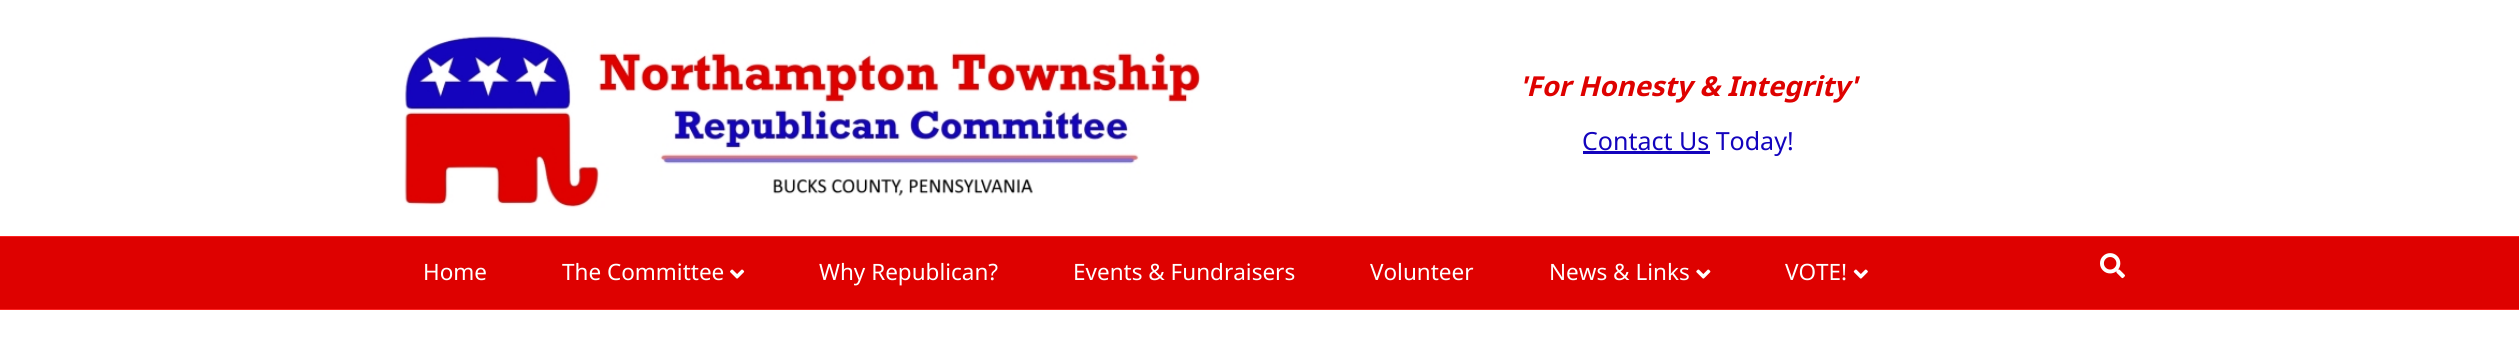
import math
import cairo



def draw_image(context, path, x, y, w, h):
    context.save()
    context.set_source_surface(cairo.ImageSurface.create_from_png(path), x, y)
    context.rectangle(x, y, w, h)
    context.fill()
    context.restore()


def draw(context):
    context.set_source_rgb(1, 1, 1)
    context.paint()
    draw_image(context, "images/1.png", 404, 36, 797, 172)
    context.set_source_rgb(20 / 255, 4 / 255, 189 / 255)
    context.rectangle(1583, 151, 127, 3)
    context.fill()
    context.set_source_rgb(222 / 255, 1 / 255, 0)
    context.rectangle(0, 237, 2519, 72)
    context.fill()
    context.set_source_rgb(1, 34 / 255, 33 / 255)
    context.rectangle(0, 236, 2519, 1)
    context.fill()
    context.rectangle(0, 309, 2519, 1)
    context.fill()
    draw_image(context, "images/2.png", 730, 269, 15, 10)
    draw_image(context, "images/3.png", 1696, 269, 15, 10)
    draw_image(context, "images/4.png", 1853, 269, 15, 10)
    draw_image(context, "images/5.png", 2100, 253, 25, 26)
    context.select_font_face("Noto Sans", cairo.FontSlant.ITALIC, cairo.FontWeight.BOLD)
    context.set_font_size(27.5)
    context.set_source_rgb(222 / 255, 1 / 255, 0)
    context.move_to(1519, 96)
    context.show_text("'For Honesty & Integrity'")
    context.select_font_face("Noto Sans")
    context.set_font_size(25)
    context.set_source_rgb(20 / 255, 4 / 255, 189 / 255)
    context.move_to(1582, 150)
    context.show_text("Contact Us Today!")
    context.set_font_size(22.5)
    context.set_source_rgb(1, 1, 1)
    context.move_to(423, 280)
    context.show_text("Home")
    context.move_to(562, 280)
    context.show_text("The Committee")
    context.move_to(819, 280)
    context.show_text("Why Republican?")
    context.move_to(1073, 280)
    context.show_text("Events & Fundraisers")
    context.move_to(1370, 280)
    context.show_text("Volunteer")
    context.move_to(1549, 280)
    context.show_text("News & Links")
    context.move_to(1785, 280)
    context.show_text("VOTE!")


surface = cairo.ImageSurface(cairo.Format.RGB24, 2519, 352)
context = cairo.Context(surface)
options = cairo.FontOptions()
options.set_hint_metrics(cairo.HintMetrics.OFF)
options.set_hint_style(cairo.HintStyle.NONE)
context.set_font_options(options)
context.set_miter_limit(4)
draw(context)
surface.write_to_png("out.png")
